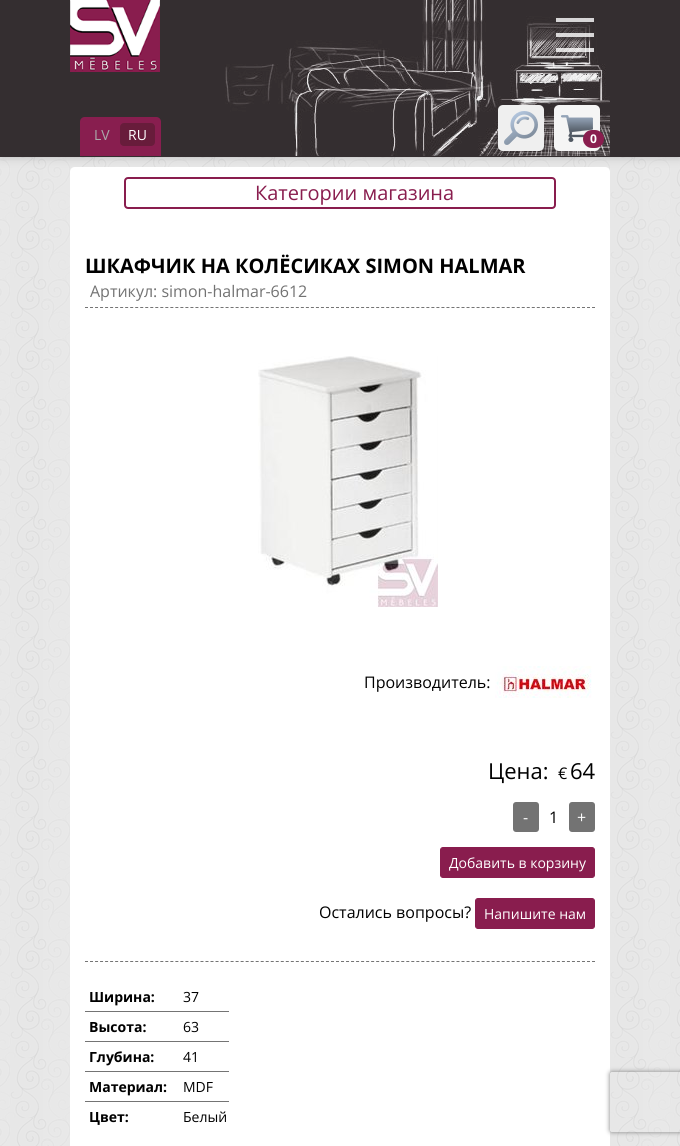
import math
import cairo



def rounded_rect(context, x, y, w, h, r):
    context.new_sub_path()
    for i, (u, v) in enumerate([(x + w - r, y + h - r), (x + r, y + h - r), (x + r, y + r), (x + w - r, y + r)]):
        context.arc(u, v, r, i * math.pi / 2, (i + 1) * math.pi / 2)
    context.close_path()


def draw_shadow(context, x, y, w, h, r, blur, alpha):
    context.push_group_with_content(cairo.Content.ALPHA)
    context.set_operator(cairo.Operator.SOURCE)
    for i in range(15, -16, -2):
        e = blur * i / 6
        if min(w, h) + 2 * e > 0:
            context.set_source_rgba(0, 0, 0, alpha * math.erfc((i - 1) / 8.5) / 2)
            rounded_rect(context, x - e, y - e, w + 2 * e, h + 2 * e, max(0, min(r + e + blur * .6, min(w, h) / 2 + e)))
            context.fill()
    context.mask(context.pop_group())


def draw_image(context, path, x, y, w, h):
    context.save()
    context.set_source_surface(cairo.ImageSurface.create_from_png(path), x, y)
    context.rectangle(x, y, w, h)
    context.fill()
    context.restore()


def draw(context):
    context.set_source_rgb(1, 1, 1)
    context.paint()
    draw_image(context, "images/1.png", 0, 157, 680, 989)
    context.set_source_rgb(0, 0, 0)
    draw_shadow(context, 0, 0, 680, 157, 0, 5, 0.2)
    context.set_source_rgb(52 / 255, 46 / 255, 48 / 255)
    context.rectangle(0, 0, 680, 157)
    context.fill()
    draw_image(context, "images/2.png", 225, 0, 385, 156)
    draw_image(context, "images/3.png", 70, 0, 90, 72)
    context.set_source_rgba(1, 1, 1, 0.8)
    context.rectangle(556, 33, 38, 4)
    context.fill()
    context.rectangle(556, 18, 38, 4)
    context.fill()
    context.rectangle(556, 48, 38, 4)
    context.fill()
    context.set_source_rgb(136 / 255, 30 / 255, 79 / 255)
    context.new_path()
    context.move_to(85, 117)
    context.line_to(156, 117)
    context.curve_to(159, 117, 161, 119, 161, 122)
    context.line_to(161, 156)
    context.line_to(80, 156)
    context.line_to(80, 122)
    context.curve_to(80, 119, 82, 117, 85, 117)
    context.close_path()
    context.fill()
    context.set_source_rgb(104 / 255, 28 / 255, 59 / 255)
    rounded_rect(context, 120, 123, 35, 23, 4)
    context.fill()
    context.set_source_rgb(239 / 255, 239 / 255, 239 / 255)
    rounded_rect(context, 498, 105, 46, 46, 5)
    context.fill()
    draw_image(context, "images/4.png", 504, 111, 34, 34)
    context.set_source_rgb(245 / 255, 245 / 255, 245 / 255)
    rounded_rect(context, 554, 105, 46, 46, 5)
    context.fill()
    draw_image(context, "images/5.png", 561, 115, 32, 27)
    context.set_source_rgb(137 / 255, 29 / 255, 78 / 255)
    rounded_rect(context, 583, 130, 21, 18, 9)
    context.fill()
    context.set_source_rgb(1, 1, 1)
    context.new_path()
    context.move_to(75, 167)
    context.line_to(605, 167)
    context.curve_to(608, 167, 610, 169, 610, 172)
    context.line_to(610, 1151)
    context.line_to(70, 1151)
    context.line_to(70, 172)
    context.curve_to(70, 169, 72, 167, 75, 167)
    context.close_path()
    context.fill()
    rounded_rect(context, 125, 178, 430, 30, 3)
    context.set_source_rgb(137 / 255, 29 / 255, 78 / 255)
    context.stroke()
    context.new_path()
    context.move_to(85, 307.5)
    context.line_to(595, 307.5)
    context.set_source_rgb(116 / 255, 116 / 255, 116 / 255)
    context.set_line_width(1)
    context.set_dash([3, 2.02])
    context.stroke()
    draw_image(context, "images/6.png", 258, 356, 180, 251)
    draw_image(context, "images/7.png", 495, 666, 97, 32)
    context.set_source_rgb(115 / 255, 115 / 255, 115 / 255)
    rounded_rect(context, 513, 802, 26, 30, 3)
    context.fill()
    rounded_rect(context, 569, 802, 26, 30, 3)
    context.fill()
    context.set_source_rgb(137 / 255, 29 / 255, 78 / 255)
    rounded_rect(context, 440.5, 847.5, 154, 30, 2.5)
    context.fill_preserve()
    context.set_dash([])
    context.stroke()
    rounded_rect(context, 475.5, 898.5, 119, 30, 2.5)
    context.fill_preserve()
    context.stroke()
    context.new_path()
    context.move_to(85, 961.5)
    context.line_to(595, 961.5)
    context.set_source_rgb(116 / 255, 116 / 255, 116 / 255)
    context.set_dash([3, 2.02])
    context.stroke()
    context.rectangle(85, 1011, 144, 1)
    context.fill()
    context.rectangle(85, 1041, 144, 1)
    context.fill()
    context.rectangle(85, 1071, 144, 1)
    context.fill()
    context.rectangle(85, 1101, 144, 1)
    context.fill()
    context.save()
    context.set_fill_rule(cairo.FillRule.EVEN_ODD)
    context.new_path()
    context.move_to(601, 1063)
    context.line_to(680, 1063)
    context.line_to(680, 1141)
    context.line_to(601, 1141)
    context.close_path()
    context.move_to(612, 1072)
    context.line_to(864, 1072)
    context.curve_to(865, 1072, 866, 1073, 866, 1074)
    context.line_to(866, 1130)
    context.curve_to(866, 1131, 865, 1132, 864, 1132)
    context.line_to(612, 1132)
    context.curve_to(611, 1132, 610, 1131, 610, 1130)
    context.line_to(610, 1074)
    context.curve_to(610, 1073, 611, 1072, 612, 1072)
    context.close_path()
    context.clip()
    context.set_source_rgb(128 / 255, 128 / 255, 128 / 255)
    draw_shadow(context, 610, 1072, 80, 60, 2, 2.5, 1)
    context.restore()
    context.select_font_face("Open Sans")
    context.set_font_size(14)
    context.set_source_rgb(170 / 255, 170 / 255, 170 / 255)
    context.move_to(94, 140)
    context.show_text("LV")
    context.set_source_rgb(1, 1, 1)
    context.move_to(128, 140)
    context.show_text("RU")
    context.select_font_face("Open Sans", cairo.FontSlant.NORMAL, cairo.FontWeight.BOLD)
    context.set_font_size(12)
    context.move_to(590, 143)
    context.show_text("0")
    context.select_font_face("Open Sans")
    context.set_font_size(20)
    context.set_source_rgb(137 / 255, 29 / 255, 78 / 255)
    context.move_to(255, 200)
    context.show_text("Категории магазина")
    context.select_font_face("Open Sans", cairo.FontSlant.NORMAL, cairo.FontWeight.BOLD)
    context.set_source_rgb(0, 0, 0)
    context.move_to(85, 273)
    context.show_text("ШКАФЧИК НА КОЛЁСИКАХ SIMON HALMAR")
    context.select_font_face("Open Sans")
    context.set_font_size(16)
    context.set_source_rgb(115 / 255, 115 / 255, 115 / 255)
    context.move_to(90, 297)
    context.show_text("Артикул: simon-halmar-6612")
    context.set_source_rgb(0, 0, 0)
    context.move_to(364, 688)
    context.show_text("Производитель:")
    context.set_font_size(22)
    context.move_to(488, 779)
    context.show_text("Цена:")
    context.set_font_size(16)
    context.move_to(558, 779)
    context.show_text("€")
    context.set_font_size(22)
    context.move_to(570, 779)
    context.show_text("64")
    context.set_font_size(16)
    context.set_source_rgb(1, 1, 1)
    context.move_to(523, 823)
    context.show_text("-")
    context.set_source_rgb(0, 0, 0)
    context.move_to(549, 823)
    context.show_text("1")
    context.set_source_rgb(1, 1, 1)
    context.move_to(577, 823)
    context.show_text("+")
    context.set_font_size(14)
    context.move_to(449, 868)
    context.show_text("Добавить в корзину")
    context.set_font_size(16)
    context.set_source_rgb(0, 0, 0)
    context.move_to(319, 918)
    context.show_text("Остались вопросы?")
    context.set_font_size(14)
    context.set_source_rgb(1, 1, 1)
    context.move_to(484, 919)
    context.show_text("Напишите нам")
    context.select_font_face("Open Sans", cairo.FontSlant.NORMAL, cairo.FontWeight.BOLD)
    context.set_source_rgb(0, 0, 0)
    context.move_to(89, 1002)
    context.show_text("Ширина:")
    context.select_font_face("Open Sans")
    context.move_to(183, 1002)
    context.show_text("37")
    context.select_font_face("Open Sans", cairo.FontSlant.NORMAL, cairo.FontWeight.BOLD)
    context.move_to(89, 1032)
    context.show_text("Высота:")
    context.select_font_face("Open Sans")
    context.move_to(183, 1032)
    context.show_text("63")
    context.select_font_face("Open Sans", cairo.FontSlant.NORMAL, cairo.FontWeight.BOLD)
    context.move_to(89, 1062)
    context.show_text("Глубина:")
    context.select_font_face("Open Sans")
    context.move_to(183, 1062)
    context.show_text("41")
    context.select_font_face("Open Sans", cairo.FontSlant.NORMAL, cairo.FontWeight.BOLD)
    context.move_to(89, 1092)
    context.show_text("Материал:")
    context.select_font_face("Open Sans")
    context.move_to(183, 1092)
    context.show_text("MDF")
    context.select_font_face("Open Sans", cairo.FontSlant.NORMAL, cairo.FontWeight.BOLD)
    context.move_to(89, 1122)
    context.show_text("Цвет:")
    context.select_font_face("Open Sans")
    context.move_to(183, 1122)
    context.show_text("Белый")


surface = cairo.ImageSurface(cairo.Format.RGB24, 680, 1146)
context = cairo.Context(surface)
options = cairo.FontOptions()
options.set_hint_metrics(cairo.HintMetrics.OFF)
options.set_hint_style(cairo.HintStyle.NONE)
context.set_font_options(options)
context.set_miter_limit(4)
draw(context)
surface.write_to_png("out.png")
